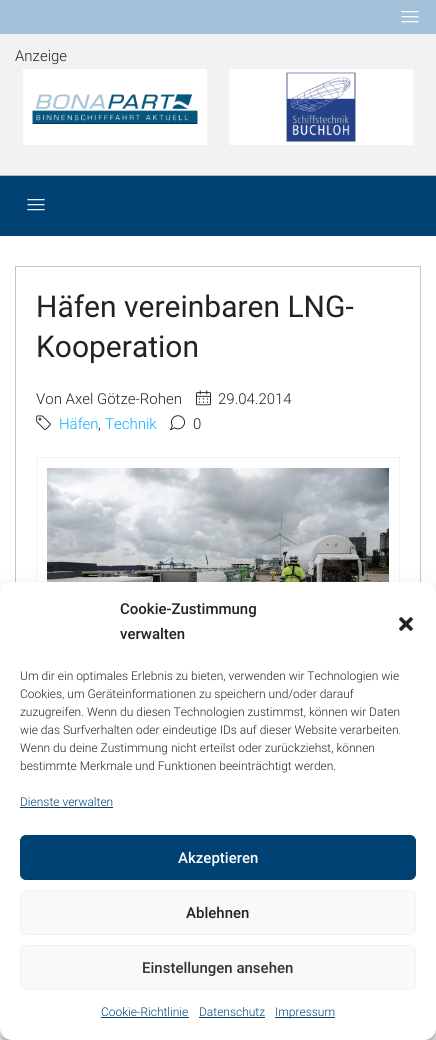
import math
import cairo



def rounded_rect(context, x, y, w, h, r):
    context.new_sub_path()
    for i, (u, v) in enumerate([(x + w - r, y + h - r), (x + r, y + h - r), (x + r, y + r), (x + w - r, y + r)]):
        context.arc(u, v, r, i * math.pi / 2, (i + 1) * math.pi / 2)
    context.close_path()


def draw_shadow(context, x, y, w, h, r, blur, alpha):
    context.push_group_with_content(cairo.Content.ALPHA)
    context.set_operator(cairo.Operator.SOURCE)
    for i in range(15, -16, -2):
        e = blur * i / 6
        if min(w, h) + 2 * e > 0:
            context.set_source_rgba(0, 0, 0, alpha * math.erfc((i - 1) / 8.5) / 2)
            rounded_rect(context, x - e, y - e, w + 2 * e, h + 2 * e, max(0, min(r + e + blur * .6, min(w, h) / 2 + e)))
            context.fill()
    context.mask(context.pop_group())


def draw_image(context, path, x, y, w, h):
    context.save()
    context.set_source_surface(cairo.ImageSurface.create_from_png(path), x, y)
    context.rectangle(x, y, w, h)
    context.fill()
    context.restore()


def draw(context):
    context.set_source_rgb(1, 1, 1)
    context.paint()
    context.set_source_rgb(163 / 255, 193 / 255, 217 / 255)
    context.rectangle(0, 0, 436, 34)
    context.fill()
    draw_image(context, "images/1.png", 401, 11, 18, 12)
    context.set_source_rgb(242 / 255, 242 / 255, 242 / 255)
    context.rectangle(0, 34, 436, 141)
    context.fill()
    context.set_source_rgb(181 / 255, 181 / 255, 181 / 255)
    context.rectangle(0, 175, 436, 1)
    context.fill()
    draw_image(context, "images/2.png", 23, 69, 184, 76)
    draw_image(context, "images/3.png", 229, 69, 184, 76)
    context.set_source_rgb(0, 66 / 255, 116 / 255)
    context.rectangle(0, 176, 436, 60)
    context.fill()
    draw_image(context, "images/4.png", 27, 199, 18, 12)
    context.set_source_rgb(198 / 255, 198 / 255, 198 / 255)
    context.rectangle(15, 266, 406, 1)
    context.fill()
    context.new_path()
    context.move_to(421, 266)
    context.line_to(421, 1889)
    context.line_to(420, 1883)
    context.line_to(420, 267)
    context.close_path()
    context.fill()
    context.new_path()
    context.move_to(15, 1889)
    context.line_to(15, 266)
    context.line_to(16, 267)
    context.line_to(16, 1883)
    context.close_path()
    context.fill()
    draw_image(context, "images/5.png", 196, 390, 15, 16)
    draw_image(context, "images/6.png", 36, 415, 15, 15)
    draw_image(context, "images/7.png", 170, 415, 15, 16)
    context.rectangle(36.5, 457.5, 363, 259)
    context.set_source_rgb(242 / 255, 242 / 255, 242 / 255)
    context.set_line_width(1)
    context.stroke()
    draw_image(context, "images/8.png", 47, 468, 342, 114)
    context.set_source_rgb(0, 0, 0)
    draw_shadow(context, 0, 588, 436, 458, 12, 3, 0.23)
    draw_shadow(context, 0, 592, 436, 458, 12, 10, 0.19)
    context.set_source_rgb(1, 1, 1)
    rounded_rect(context, 0, 582, 436, 458, 12)
    context.fill()
    draw_image(context, "images/9.png", 399, 617, 14, 14)
    context.set_source_rgb(0, 66 / 255, 116 / 255)
    context.rectangle(20, 807, 93, 1)
    context.fill()
    rounded_rect(context, 20.5, 835.5, 395, 44, 5.5)
    context.fill_preserve()
    context.stroke()
    context.set_source_rgb(249 / 255, 249 / 255, 249 / 255)
    rounded_rect(context, 20.5, 890.5, 395, 44, 5.5)
    context.fill_preserve()
    context.set_source_rgb(242 / 255, 242 / 255, 242 / 255)
    context.stroke()
    context.set_source_rgb(249 / 255, 249 / 255, 249 / 255)
    rounded_rect(context, 20.5, 945.5, 395, 44, 5.5)
    context.fill_preserve()
    context.set_source_rgb(242 / 255, 242 / 255, 242 / 255)
    context.stroke()
    context.set_source_rgb(0, 66 / 255, 116 / 255)
    context.rectangle(101, 1017, 88, 1)
    context.fill()
    context.rectangle(199, 1017, 66, 1)
    context.fill()
    context.rectangle(275, 1017, 60, 1)
    context.fill()
    context.select_font_face("Roboto Light")
    context.set_font_size(15)
    context.set_source_rgb(34 / 255, 34 / 255, 34 / 255)
    context.move_to(15, 61)
    context.show_text("Anzeige")
    context.select_font_face("Roboto")
    context.set_font_size(30)
    context.move_to(36, 317)
    context.show_text("Häfen vereinbaren LNG-")
    context.move_to(36, 357)
    context.show_text("Kooperation")
    context.select_font_face("Roboto Light")
    context.set_font_size(15)
    context.move_to(36, 404)
    context.show_text("Von Axel Götze-Rohen")
    context.move_to(218, 404)
    context.show_text("29.04.2014")
    context.set_source_rgb(0, 174 / 255, 1)
    context.move_to(59, 429)
    context.show_text("Häfen")
    context.set_source_rgb(34 / 255, 34 / 255, 34 / 255)
    context.move_to(98, 429)
    context.show_text(",")
    context.set_source_rgb(0, 174 / 255, 1)
    context.move_to(105, 429)
    context.show_text("Technik")
    context.set_source_rgb(34 / 255, 34 / 255, 34 / 255)
    context.move_to(193, 429)
    context.show_text("0")
    context.select_font_face("Roboto Medium")
    context.move_to(120, 614)
    context.show_text("Cookie-Zustimmung")
    context.move_to(120, 639)
    context.show_text("verwalten")
    context.select_font_face("Roboto Light")
    context.set_font_size(12)
    context.move_to(20, 680)
    context.show_text("Um dir ein optimales Erlebnis zu bieten, verwenden wir Technologien wie")
    context.move_to(20, 698)
    context.show_text("Cookies, um Geräteinformationen zu speichern und/oder darauf")
    context.move_to(20, 716)
    context.show_text("zuzugreifen. Wenn du diesen Technologien zustimmst, können wir Daten")
    context.move_to(20, 734)
    context.show_text("wie das Surfverhalten oder eindeutige IDs auf dieser Website verarbeiten.")
    context.move_to(20, 752)
    context.show_text("Wenn du deine Zustimmung nicht erteilst oder zurückziehst, können")
    context.move_to(20, 770)
    context.show_text("bestimmte Merkmale und Funktionen beeinträchtigt werden.")
    context.set_source_rgb(0, 66 / 255, 116 / 255)
    context.move_to(20, 806)
    context.show_text("Dienste verwalten")
    context.select_font_face("Roboto Medium")
    context.set_font_size(15)
    context.set_source_rgb(1, 1, 1)
    context.move_to(178, 863)
    context.show_text("Akzeptieren")
    context.set_source_rgb(34 / 255, 34 / 255, 34 / 255)
    context.move_to(186, 918)
    context.show_text("Ablehnen")
    context.set_source_rgb(51 / 255, 51 / 255, 51 / 255)
    context.move_to(142, 973)
    context.show_text("Einstellungen ansehen")
    context.select_font_face("Roboto Light")
    context.set_font_size(12)
    context.set_source_rgb(0, 66 / 255, 116 / 255)
    context.move_to(101, 1016)
    context.show_text("Cookie-Richtlinie")
    context.move_to(199, 1016)
    context.show_text("Datenschutz")
    context.move_to(275, 1016)
    context.show_text("Impressum")


surface = cairo.ImageSurface(cairo.Format.RGB24, 436, 1040)
context = cairo.Context(surface)
options = cairo.FontOptions()
options.set_hint_metrics(cairo.HintMetrics.OFF)
options.set_hint_style(cairo.HintStyle.NONE)
context.set_font_options(options)
context.set_miter_limit(4)
draw(context)
surface.write_to_png("out.png")
